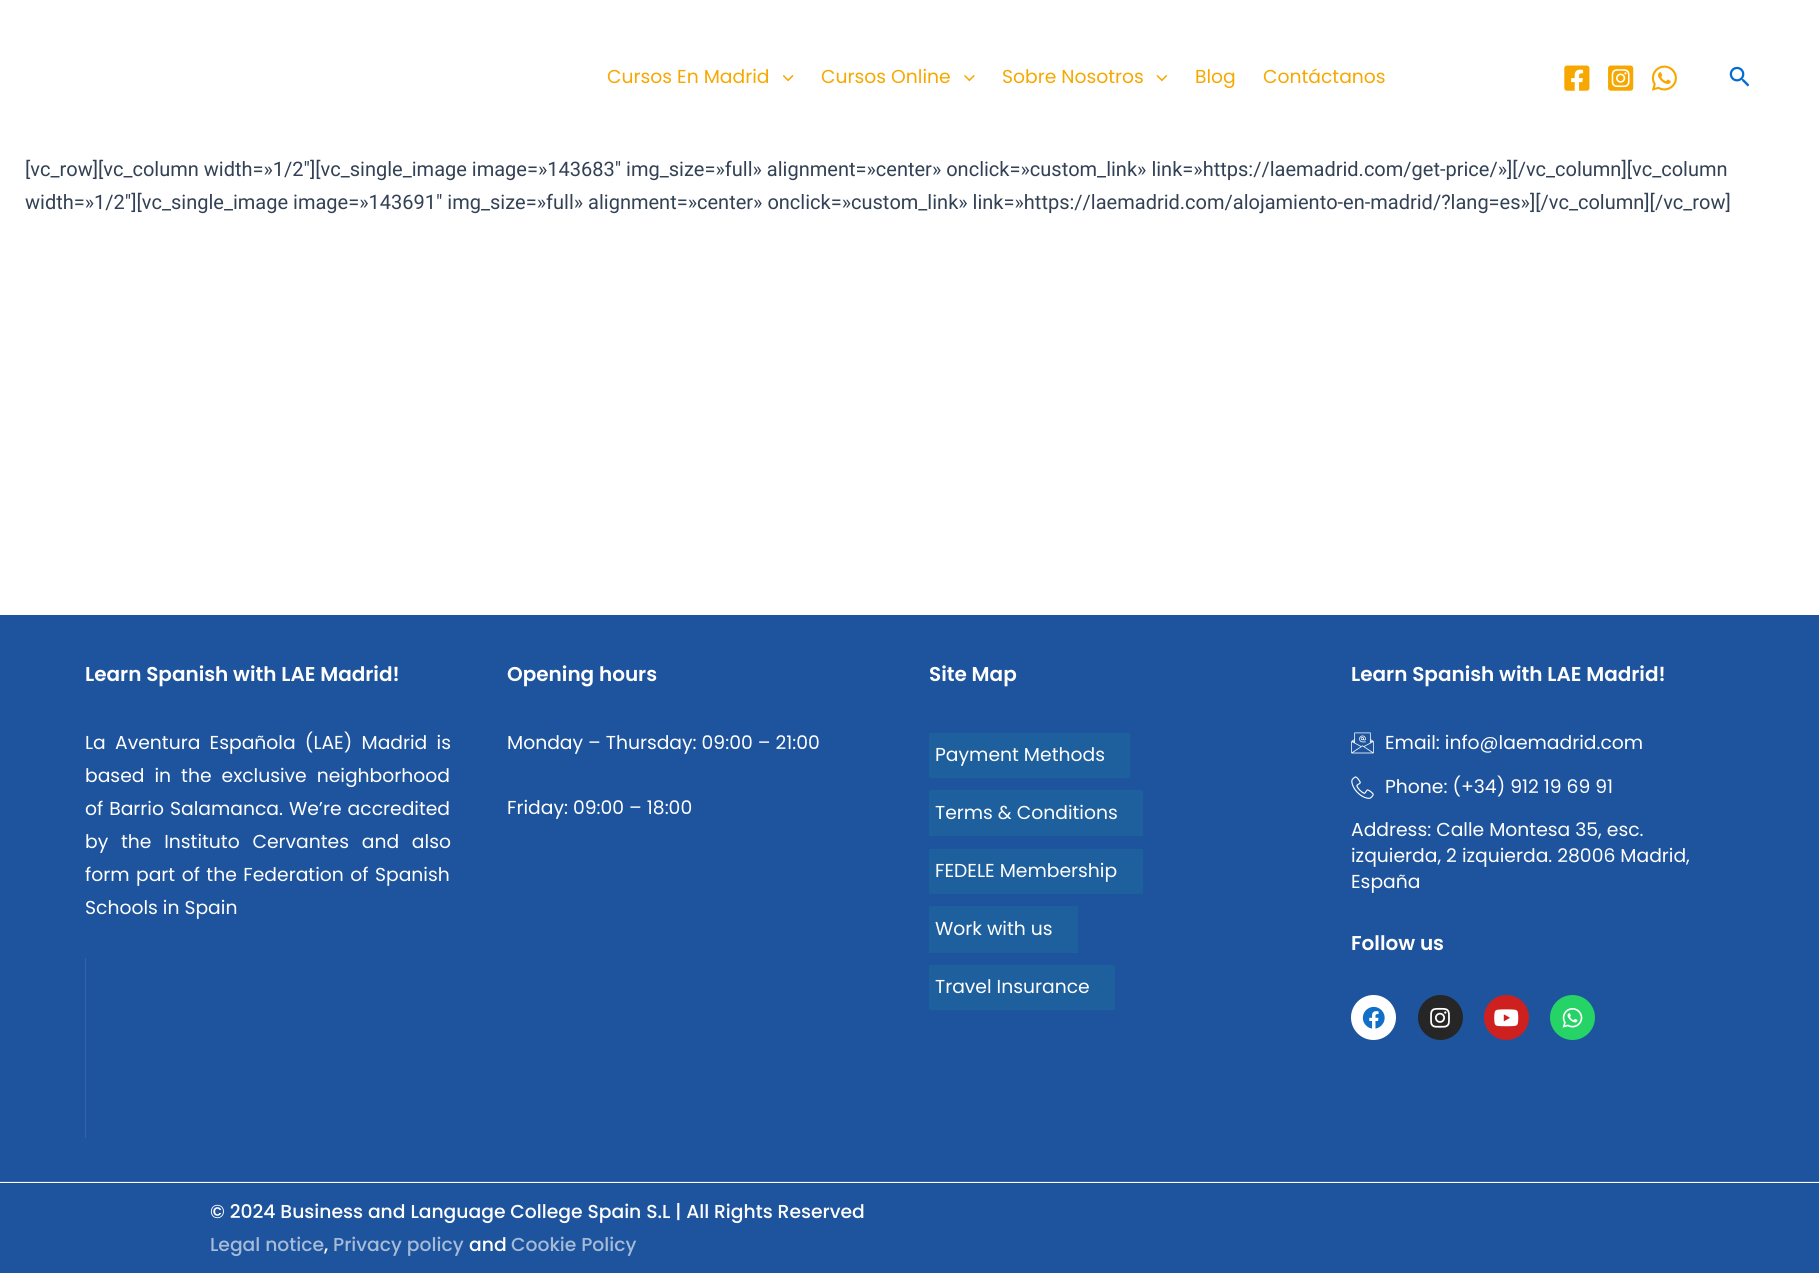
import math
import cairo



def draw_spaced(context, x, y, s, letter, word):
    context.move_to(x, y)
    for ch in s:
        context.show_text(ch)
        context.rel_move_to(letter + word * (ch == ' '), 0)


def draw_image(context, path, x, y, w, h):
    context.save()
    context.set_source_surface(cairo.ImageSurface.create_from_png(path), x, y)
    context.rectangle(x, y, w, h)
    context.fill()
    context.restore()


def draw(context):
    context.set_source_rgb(1, 1, 1)
    context.paint()
    draw_image(context, "images/1.png", 783, 75, 11, 7)
    draw_image(context, "images/2.png", 964, 75, 11, 7)
    draw_image(context, "images/3.png", 1156, 75, 12, 7)
    draw_image(context, "images/4.png", 1564, 65, 26, 26)
    draw_image(context, "images/5.png", 1608, 65, 26, 26)
    draw_image(context, "images/6.png", 1651, 65, 26, 26)
    draw_image(context, "images/7.png", 1729, 66, 20, 21)
    context.set_source_rgb(30 / 255, 84 / 255, 158 / 255)
    context.rectangle(0, 615, 1819, 566)
    context.fill()
    context.set_source_rgb(53 / 255, 101 / 255, 168 / 255)
    context.rectangle(85, 958, 1, 180)
    context.fill()
    context.set_source_rgb(30 / 255, 95 / 255, 158 / 255)
    context.rectangle(929, 733, 201, 45)
    context.fill()
    context.rectangle(929, 790, 214, 46)
    context.fill()
    context.rectangle(929, 849, 214, 45)
    context.fill()
    context.rectangle(929, 906, 149, 47)
    context.fill()
    context.rectangle(929, 965, 186, 45)
    context.fill()
    draw_image(context, "images/8.png", 1351, 732, 23, 22)
    draw_image(context, "images/9.png", 1351, 776, 23, 23)
    context.set_source_rgb(1, 1, 1)
    context.arc(1373.5, 1017.5, 22.5, 0, 2 * math.pi)
    context.fill()
    draw_image(context, "images/10.png", 1362, 1006, 23, 23)
    context.set_source_rgb(38 / 255, 38 / 255, 38 / 255)
    context.arc(1440.5, 1017.5, 22.5, 0, 2 * math.pi)
    context.fill()
    draw_image(context, "images/11.png", 1430, 1007, 20, 21)
    context.set_source_rgb(205 / 255, 32 / 255, 31 / 255)
    context.arc(1506.5, 1017.5, 22.5, 0, 2 * math.pi)
    context.fill()
    draw_image(context, "images/12.png", 1494, 1009, 25, 18)
    context.set_source_rgb(37 / 255, 211 / 255, 102 / 255)
    context.arc(1572.5, 1017.5, 22.5, 0, 2 * math.pi)
    context.fill()
    draw_image(context, "images/13.png", 1562, 1008, 21, 20)
    context.set_source_rgb(30 / 255, 84 / 255, 158 / 255)
    context.rectangle(0, 1183, 1819, 90)
    context.fill()
    context.set_source_rgb(53 / 255, 101 / 255, 168 / 255)
    context.rectangle(0, 1181, 1819, 1)
    context.fill()
    context.select_font_face("Poppins")
    context.set_font_size(18.75)
    context.set_source_rgb(246 / 255, 168 / 255, 0)
    context.move_to(607, 83)
    context.show_text("Cursos En Madrid")
    context.move_to(821, 83)
    context.show_text("Cursos Online")
    context.move_to(1002, 83)
    context.show_text("Sobre Nosotros")
    context.move_to(1195, 83)
    context.show_text("Blog")
    context.move_to(1263, 83)
    context.show_text("Contáctanos")
    context.select_font_face("Roboto")
    context.set_font_size(20)
    context.set_source_rgb(51 / 255, 65 / 255, 85 / 255)
    context.move_to(25, 176)
    context.show_text("[vc_row][vc_column width=»1/2″][vc_single_image image=»143683″ img_size=»full» alignment=»center» onclick=»custom_link» link=»https://laemadrid.com/get-price/»][/vc_column][vc_column")
    context.move_to(25, 209)
    context.show_text("width=»1/2″][vc_single_image image=»143691″ img_size=»full» alignment=»center» onclick=»custom_link» link=»https://laemadrid.com/alojamiento-en-madrid/?lang=es»][/vc_column][/vc_row]")
    context.select_font_face("Poppins SemiBold")
    context.set_source_rgb(1, 1, 1)
    context.move_to(85, 681)
    context.show_text("Learn Spanish with LAE Madrid!")
    context.select_font_face("Poppins")
    context.set_font_size(18.75)
    draw_spaced(context, 85, 749, "La Aventura Española (LAE) Madrid is", 0, 4.25)
    draw_spaced(context, 85, 782, "based in the exclusive neighborhood", 0, 5)
    draw_spaced(context, 85, 815, "of Barrio Salamanca. We’re accredited", 0, 1)
    draw_spaced(context, 85, 848, "by the Instituto Cervantes and also", 0, 7.75)
    draw_spaced(context, 85, 881, "form part of the Federation of Spanish", 0, 1.5)
    context.move_to(85, 914)
    context.show_text("Schools in Spain")
    context.select_font_face("Poppins SemiBold")
    context.set_font_size(20)
    context.move_to(507, 681)
    context.show_text("Opening hours")
    context.select_font_face("Poppins")
    context.set_font_size(18.75)
    context.move_to(507, 749)
    context.show_text("Monday – Thursday: 09:00 – 21:00")
    context.move_to(507, 814)
    context.show_text("Friday: 09:00 – 18:00")
    context.select_font_face("Poppins SemiBold")
    context.set_font_size(20)
    context.move_to(929, 681)
    context.show_text("Site Map")
    context.select_font_face("Poppins")
    context.set_font_size(18.75)
    context.move_to(935, 761)
    context.show_text("Payment Methods")
    context.move_to(935, 819)
    context.show_text("Terms & Conditions")
    context.move_to(935, 877)
    context.show_text("FEDELE Membership")
    context.move_to(935, 935)
    context.show_text("Work with us")
    context.move_to(935, 993)
    context.show_text("Travel Insurance")
    context.select_font_face("Poppins SemiBold")
    context.set_font_size(20)
    context.move_to(1351, 681)
    context.show_text("Learn Spanish with LAE Madrid!")
    context.select_font_face("Poppins")
    context.set_font_size(18.75)
    context.move_to(1385, 749)
    context.show_text("Email: info@laemadrid.com")
    context.move_to(1385, 793)
    context.show_text("Phone: (+34) 912 19 69 91")
    context.move_to(1351, 836)
    context.show_text("Address: Calle Montesa 35, esc.")
    context.move_to(1351, 862)
    context.show_text("izquierda, 2 izquierda. 28006 Madrid,")
    context.move_to(1351, 888)
    context.show_text("España")
    context.select_font_face("Poppins SemiBold")
    context.set_font_size(20)
    context.move_to(1351, 950)
    context.show_text("Follow us")
    context.select_font_face("Poppins Medium")
    context.set_font_size(18.75)
    context.move_to(210, 1218)
    context.show_text("© 2024 Business and Language College Spain S.L | All Rights Reserved")
    context.set_source_rgb(165 / 255, 187 / 255, 216 / 255)
    context.move_to(210, 1251)
    context.show_text("Legal notice")
    context.set_source_rgb(1, 1, 1)
    context.move_to(324, 1251)
    context.show_text(",")
    context.set_source_rgb(165 / 255, 187 / 255, 216 / 255)
    context.move_to(333, 1251)
    context.show_text("Privacy policy")
    context.set_source_rgb(1, 1, 1)
    context.move_to(469, 1251)
    context.show_text("and")
    context.set_source_rgb(165 / 255, 187 / 255, 216 / 255)
    context.move_to(511, 1251)
    context.show_text("Cookie Policy")


surface = cairo.ImageSurface(cairo.Format.RGB24, 1819, 1273)
context = cairo.Context(surface)
options = cairo.FontOptions()
options.set_hint_metrics(cairo.HintMetrics.OFF)
options.set_hint_style(cairo.HintStyle.NONE)
context.set_font_options(options)
context.set_miter_limit(4)
draw(context)
surface.write_to_png("out.png")
